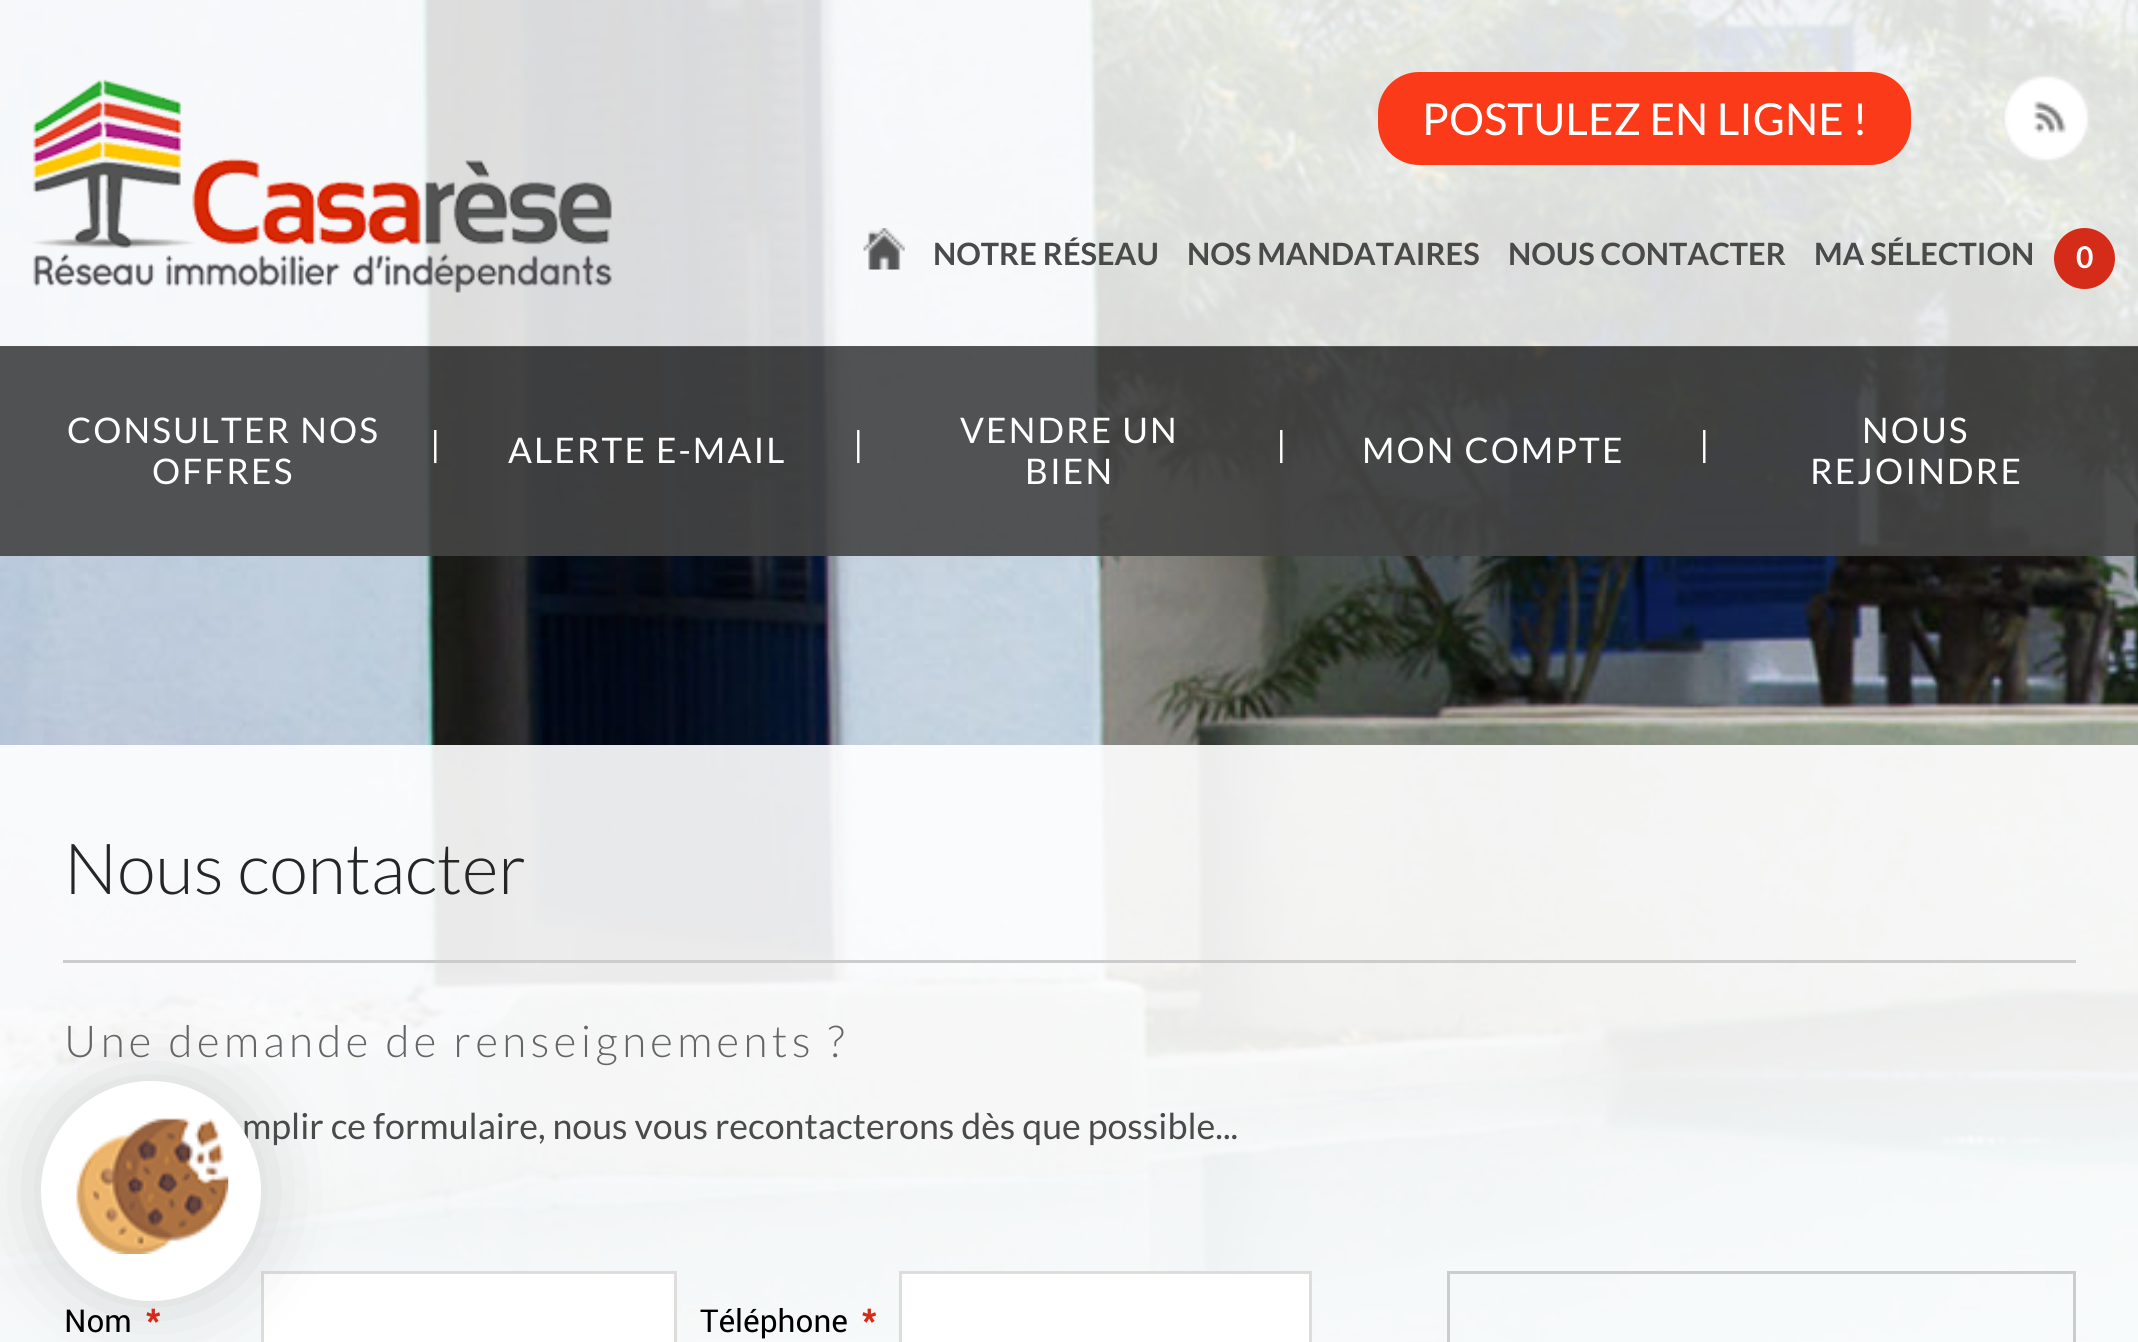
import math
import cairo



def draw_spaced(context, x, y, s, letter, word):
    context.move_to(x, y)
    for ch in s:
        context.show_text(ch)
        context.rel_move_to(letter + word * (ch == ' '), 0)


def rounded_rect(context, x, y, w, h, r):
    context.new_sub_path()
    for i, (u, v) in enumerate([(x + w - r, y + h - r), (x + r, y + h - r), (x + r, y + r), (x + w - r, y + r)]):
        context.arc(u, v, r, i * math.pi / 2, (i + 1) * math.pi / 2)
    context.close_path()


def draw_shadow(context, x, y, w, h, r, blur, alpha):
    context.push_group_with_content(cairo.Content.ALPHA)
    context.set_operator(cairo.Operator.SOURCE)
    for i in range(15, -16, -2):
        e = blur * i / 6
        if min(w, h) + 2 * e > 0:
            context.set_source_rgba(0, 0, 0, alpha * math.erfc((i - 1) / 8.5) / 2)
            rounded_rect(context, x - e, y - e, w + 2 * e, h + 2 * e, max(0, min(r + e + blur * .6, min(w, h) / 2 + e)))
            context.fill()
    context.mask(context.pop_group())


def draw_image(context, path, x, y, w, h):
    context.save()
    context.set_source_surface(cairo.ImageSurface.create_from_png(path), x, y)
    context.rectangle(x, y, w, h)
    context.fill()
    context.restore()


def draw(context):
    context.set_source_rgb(1, 1, 1)
    context.paint()
    draw_image(context, "images/1.png", 0, 0, 2138, 1342)
    context.set_source_rgba(1, 1, 1, 0.85)
    context.rectangle(0, 0, 2138, 347)
    context.fill()
    draw_image(context, "images/2.png", 31, 79, 581, 214)
    context.set_source_rgb(250 / 255, 58 / 255, 25 / 255)
    rounded_rect(context, 1378, 72, 533, 93, 41)
    context.fill()
    draw_image(context, "images/3.png", 2002, 74, 89, 89)
    draw_image(context, "images/4.png", 863, 228, 42, 42)
    context.set_source_rgb(213 / 255, 44 / 255, 25 / 255)
    context.arc(2084.5, 258.5, 30.5, 0, 2 * math.pi)
    context.fill()
    context.set_source_rgba(68 / 255, 68 / 255, 68 / 255, 0.9)
    context.rectangle(0, 346, 2138, 210)
    context.fill()
    context.set_source_rgba(1, 1, 1, 0.91)
    context.rectangle(0, 745, 2138, 597)
    context.fill()
    context.set_source_rgb(204 / 255, 204 / 255, 204 / 255)
    context.rectangle(63, 960, 2013, 3)
    context.fill()
    context.set_source_rgb(1, 1, 1)
    context.rectangle(262.5, 1272.5, 413, 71)
    context.fill_preserve()
    context.set_source_rgb(223 / 255, 221 / 255, 219 / 255)
    context.set_line_width(3)
    context.stroke()
    context.set_source_rgb(1, 1, 1)
    context.rectangle(900.5, 1272.5, 410, 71)
    context.fill_preserve()
    context.set_source_rgb(223 / 255, 221 / 255, 219 / 255)
    context.stroke()
    context.rectangle(1448.5, 1272.5, 626, 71)
    context.set_source_rgb(203 / 255, 205 / 255, 205 / 255)
    context.stroke()
    context.set_source_rgb(0, 0, 0)
    draw_shadow(context, 41, 1081, 220, 220, 110, 41, 0.15)
    context.select_font_face("Lato")
    context.set_font_size(44)
    context.set_source_rgb(1, 1, 1)
    context.move_to(1422, 135)
    context.show_text("POSTULEZ EN LIGNE !")
    context.select_font_face("Lato", cairo.FontSlant.NORMAL, cairo.FontWeight.BOLD)
    context.set_font_size(30.75)
    context.set_source_rgb(74 / 255, 74 / 255, 74 / 255)
    context.move_to(933, 265)
    context.show_text("NOTRE RÉSEAU")
    context.move_to(1187, 265)
    context.show_text("NOS MANDATAIRES")
    context.move_to(1508, 265)
    context.show_text("NOUS CONTACTER")
    context.move_to(1814, 265)
    context.show_text("MA SÉLECTION")
    context.set_font_size(30)
    context.set_source_rgb(1, 1, 1)
    context.move_to(2076, 268)
    context.show_text("0")
    context.select_font_face("Lato")
    context.set_font_size(35.25)
    draw_spaced(context, 67, 443, "CONSULTER NOS", 2.1, 0)
    draw_spaced(context, 152, 484, "OFFRES", 2.1, 0)
    context.move_to(430, 457)
    context.show_text("|")
    draw_spaced(context, 508, 463, "ALERTE E-MAIL", 2.1, 0)
    context.move_to(853, 457)
    context.show_text("|")
    draw_spaced(context, 960, 443, "VENDRE UN", 2.1, 0)
    draw_spaced(context, 1025, 484, "BIEN", 2.1, 0)
    context.move_to(1276, 457)
    context.show_text("|")
    draw_spaced(context, 1362, 463, "MON COMPTE", 2.1, 0)
    context.move_to(1699, 457)
    context.show_text("|")
    draw_spaced(context, 1862, 443, "NOUS", 2.1, 0)
    draw_spaced(context, 1810, 484, "REJOINDRE", 2.1, 0)
    context.select_font_face("Lato Light")
    context.set_font_size(70.5)
    context.set_source_rgb(39 / 255, 38 / 255, 38 / 255)
    context.move_to(64, 894)
    context.show_text("Nous contacter")
    context.set_font_size(44)
    context.set_source_rgb(101 / 255, 101 / 255, 101 / 255)
    draw_spaced(context, 64, 1057, "Une demande de renseignements ?", 4.4, 0)
    context.select_font_face("Lato")
    context.set_font_size(35.75)
    context.set_source_rgb(74 / 255, 74 / 255, 74 / 255)
    context.move_to(242, 1139)
    context.show_text("mplir ce formulaire, nous vous recontacterons dès que possible...")
    context.select_font_face("Roboto")
    context.set_font_size(31.5)
    context.set_source_rgb(0, 0, 0)
    context.move_to(64, 1332)
    context.show_text("Nom")
    context.select_font_face("Roboto", cairo.FontSlant.NORMAL, cairo.FontWeight.BOLD)
    context.set_source_rgb(213 / 255, 44 / 255, 25 / 255)
    context.move_to(146, 1332)
    context.show_text("*")
    context.select_font_face("Roboto")
    context.set_source_rgb(0, 0, 0)
    context.move_to(700, 1332)
    context.show_text("Téléphone")
    context.select_font_face("Roboto", cairo.FontSlant.NORMAL, cairo.FontWeight.BOLD)
    context.set_source_rgb(213 / 255, 44 / 255, 25 / 255)
    context.move_to(862, 1332)
    context.show_text("*")
    context.set_source_rgb(1, 1, 1)
    context.new_path()
    context.arc(151, 1191, 110, 0, 2 * math.pi)
    context.fill()
    draw_image(context, "images/5.png", 76, 1118, 153, 136)


surface = cairo.ImageSurface(cairo.Format.RGB24, 2138, 1342)
context = cairo.Context(surface)
options = cairo.FontOptions()
options.set_hint_metrics(cairo.HintMetrics.OFF)
options.set_hint_style(cairo.HintStyle.NONE)
context.set_font_options(options)
context.set_miter_limit(4)
draw(context)
surface.write_to_png("out.png")
